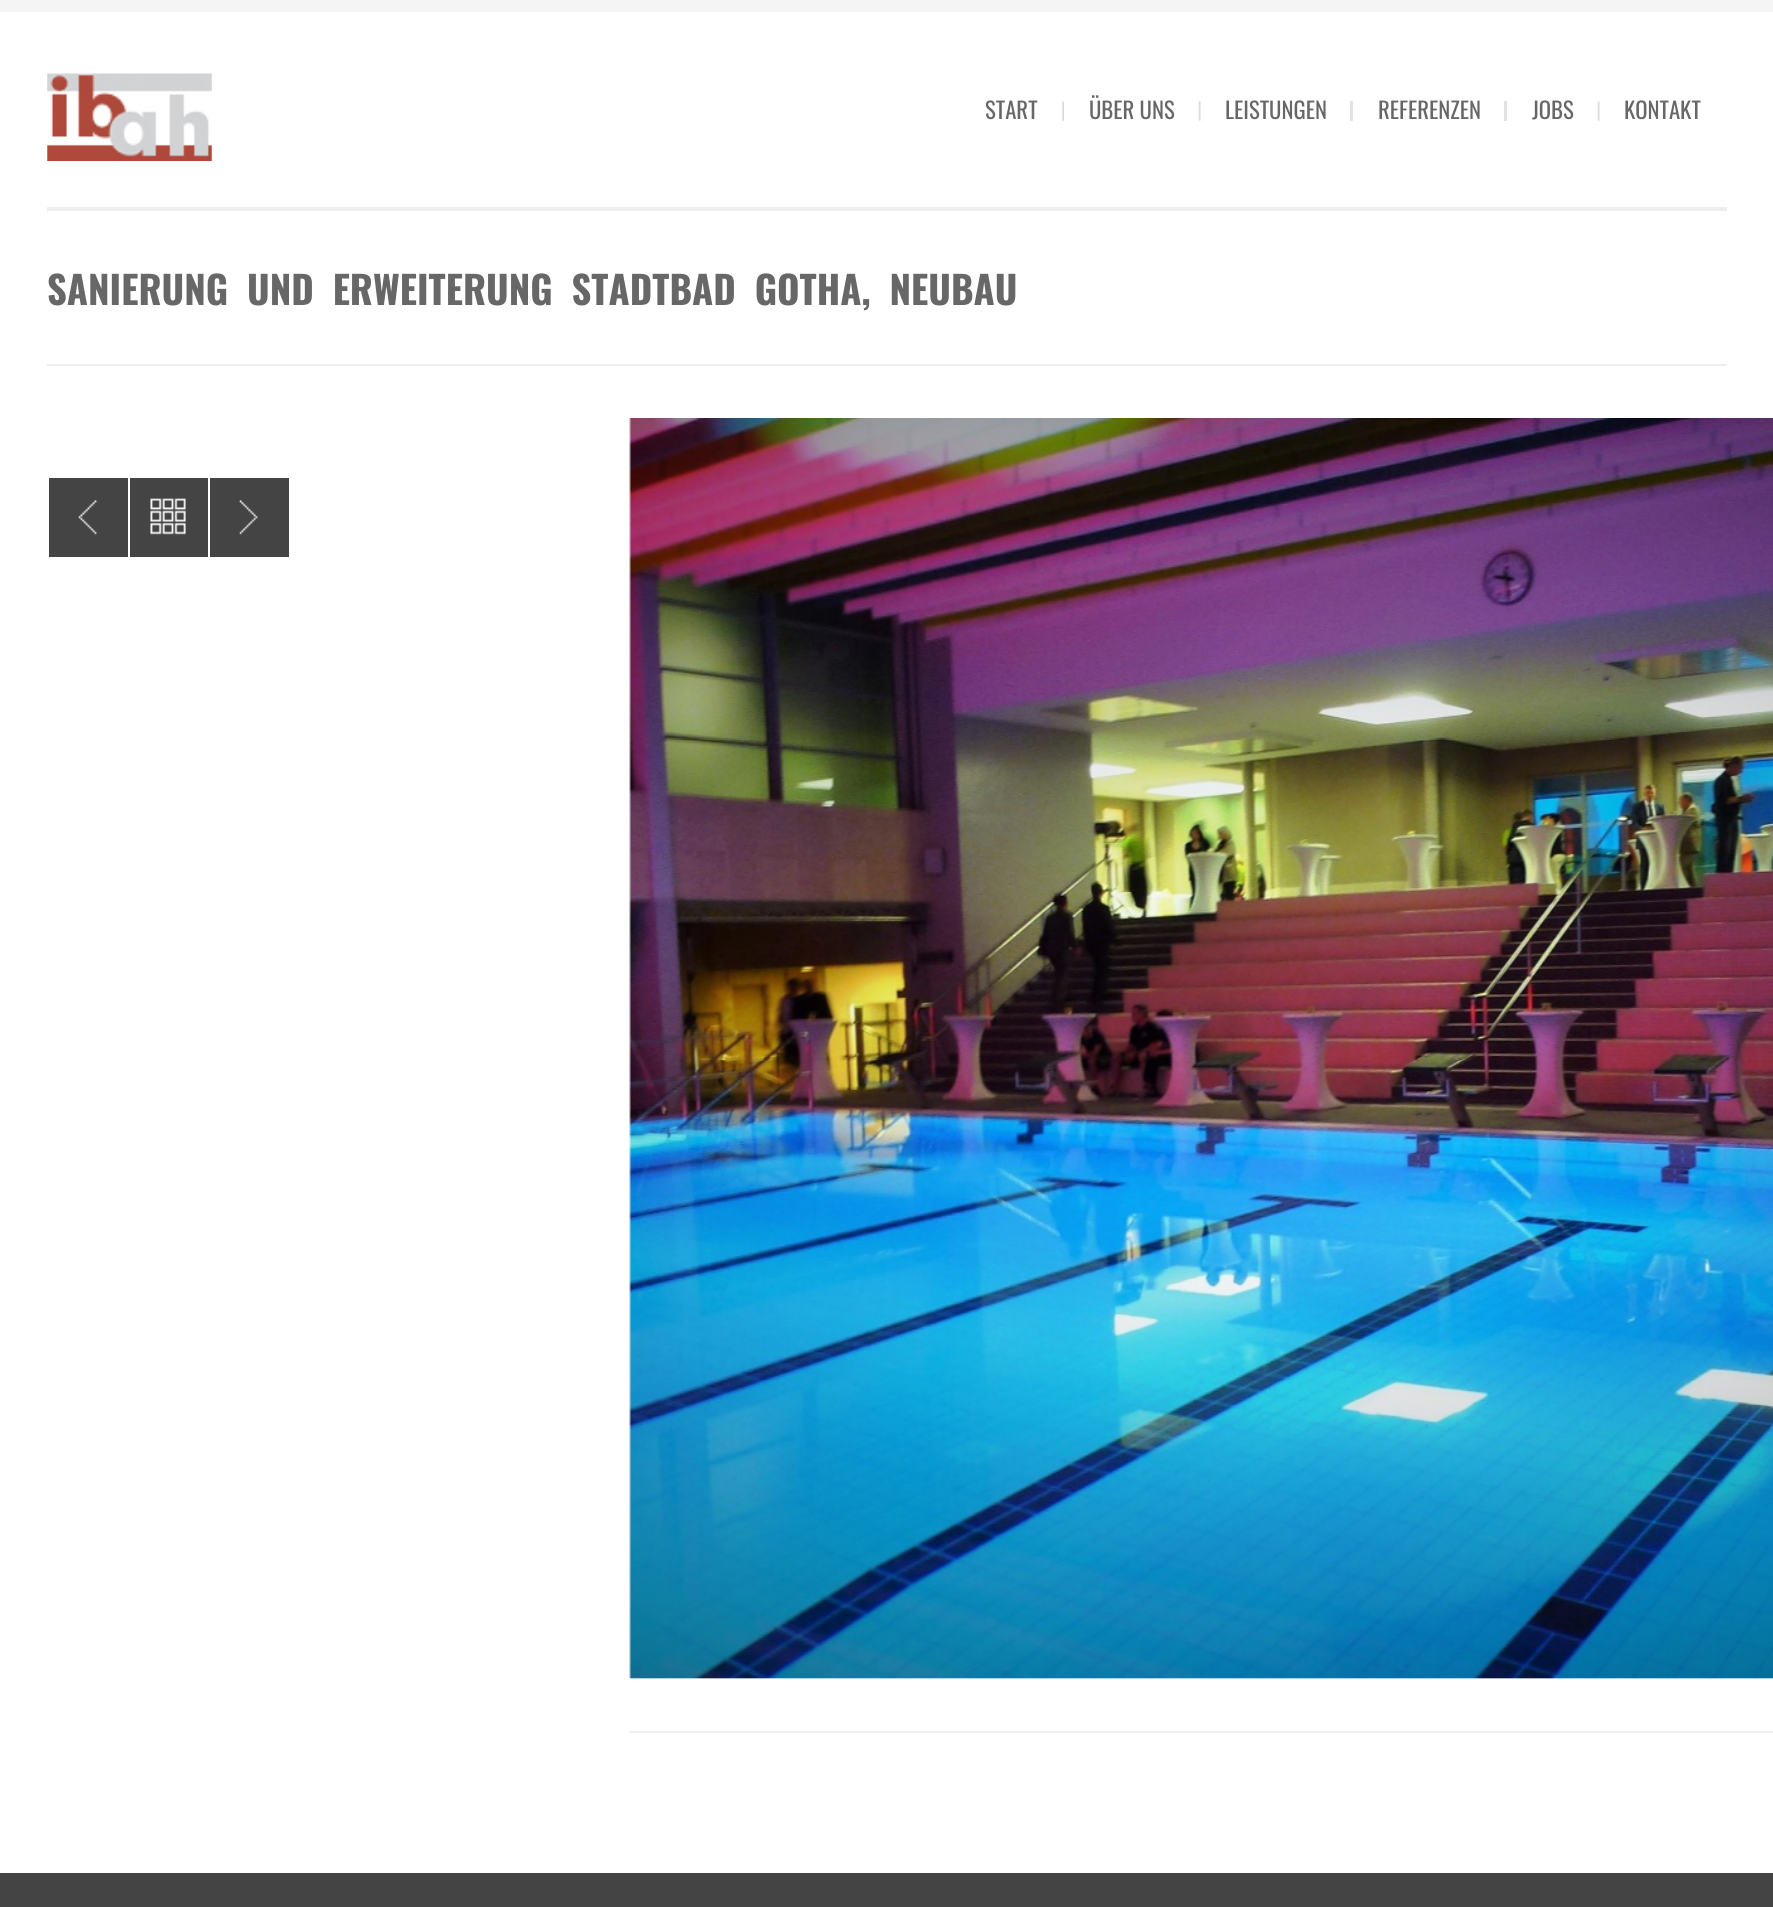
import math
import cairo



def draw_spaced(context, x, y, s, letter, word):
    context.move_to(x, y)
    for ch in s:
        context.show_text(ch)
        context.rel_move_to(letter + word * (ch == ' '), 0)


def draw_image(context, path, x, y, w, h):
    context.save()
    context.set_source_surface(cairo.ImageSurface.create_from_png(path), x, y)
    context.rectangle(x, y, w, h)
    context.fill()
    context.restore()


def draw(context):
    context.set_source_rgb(1, 1, 1)
    context.paint()
    context.set_source_rgb(245 / 255, 245 / 255, 245 / 255)
    context.rectangle(0, 0, 1773, 12)
    context.fill()
    draw_image(context, "images/1.png", 47, 73, 165, 88)
    draw_image(context, "images/2.png", 1062, 101, 2, 21)
    draw_image(context, "images/3.png", 1198, 101, 3, 21)
    context.set_source_rgb(226 / 255, 226 / 255, 226 / 255)
    context.rectangle(1350, 101, 3, 20)
    context.fill()
    context.rectangle(1504, 101, 3, 20)
    context.fill()
    draw_image(context, "images/3.png", 1597, 101, 3, 21)
    context.set_source_rgb(238 / 255, 238 / 255, 238 / 255)
    context.rectangle(47, 207, 1680, 4)
    context.fill()
    context.rectangle(47, 364, 1680, 2)
    context.fill()
    context.set_source_rgb(68 / 255, 68 / 255, 68 / 255)
    context.rectangle(49, 478, 79, 79)
    context.fill()
    draw_image(context, "images/4.png", 78, 500, 19, 35)
    context.rectangle(130, 478, 78, 79)
    context.fill()
    draw_image(context, "images/5.png", 150, 498, 36, 37)
    context.rectangle(210, 478, 79, 79)
    context.fill()
    draw_image(context, "images/6.png", 239, 500, 19, 35)
    context.set_source_rgb(238 / 255, 238 / 255, 238 / 255)
    context.rectangle(630, 1731, 1143, 2)
    context.fill()
    draw_image(context, "images/7.png", 629, 418, 1144, 1261)
    context.set_source_rgb(68 / 255, 68 / 255, 68 / 255)
    context.rectangle(0, 1873, 1773, 34)
    context.fill()
    context.select_font_face("Oswald")
    context.set_font_size(22.75)
    context.set_source_rgb(103 / 255, 103 / 255, 103 / 255)
    context.move_to(985, 119)
    context.show_text("START")
    context.move_to(1089, 119)
    context.show_text("ÜBER UNS")
    context.move_to(1225, 119)
    context.show_text("LEISTUNGEN")
    context.move_to(1378, 119)
    context.show_text("REFERENZEN")
    context.move_to(1532, 119)
    context.show_text("JOBS")
    context.move_to(1624, 119)
    context.show_text("KONTAKT")
    context.select_font_face("Oswald", cairo.FontSlant.NORMAL, cairo.FontWeight.BOLD)
    context.set_font_size(38.5)
    draw_spaced(context, 47, 305, "SANIERUNG UND ERWEITERUNG STADTBAD GOTHA, NEUBAU", 0, 9)


surface = cairo.ImageSurface(cairo.Format.RGB24, 1773, 1907)
context = cairo.Context(surface)
options = cairo.FontOptions()
options.set_hint_metrics(cairo.HintMetrics.OFF)
options.set_hint_style(cairo.HintStyle.NONE)
context.set_font_options(options)
context.set_miter_limit(4)
draw(context)
surface.write_to_png("out.png")
